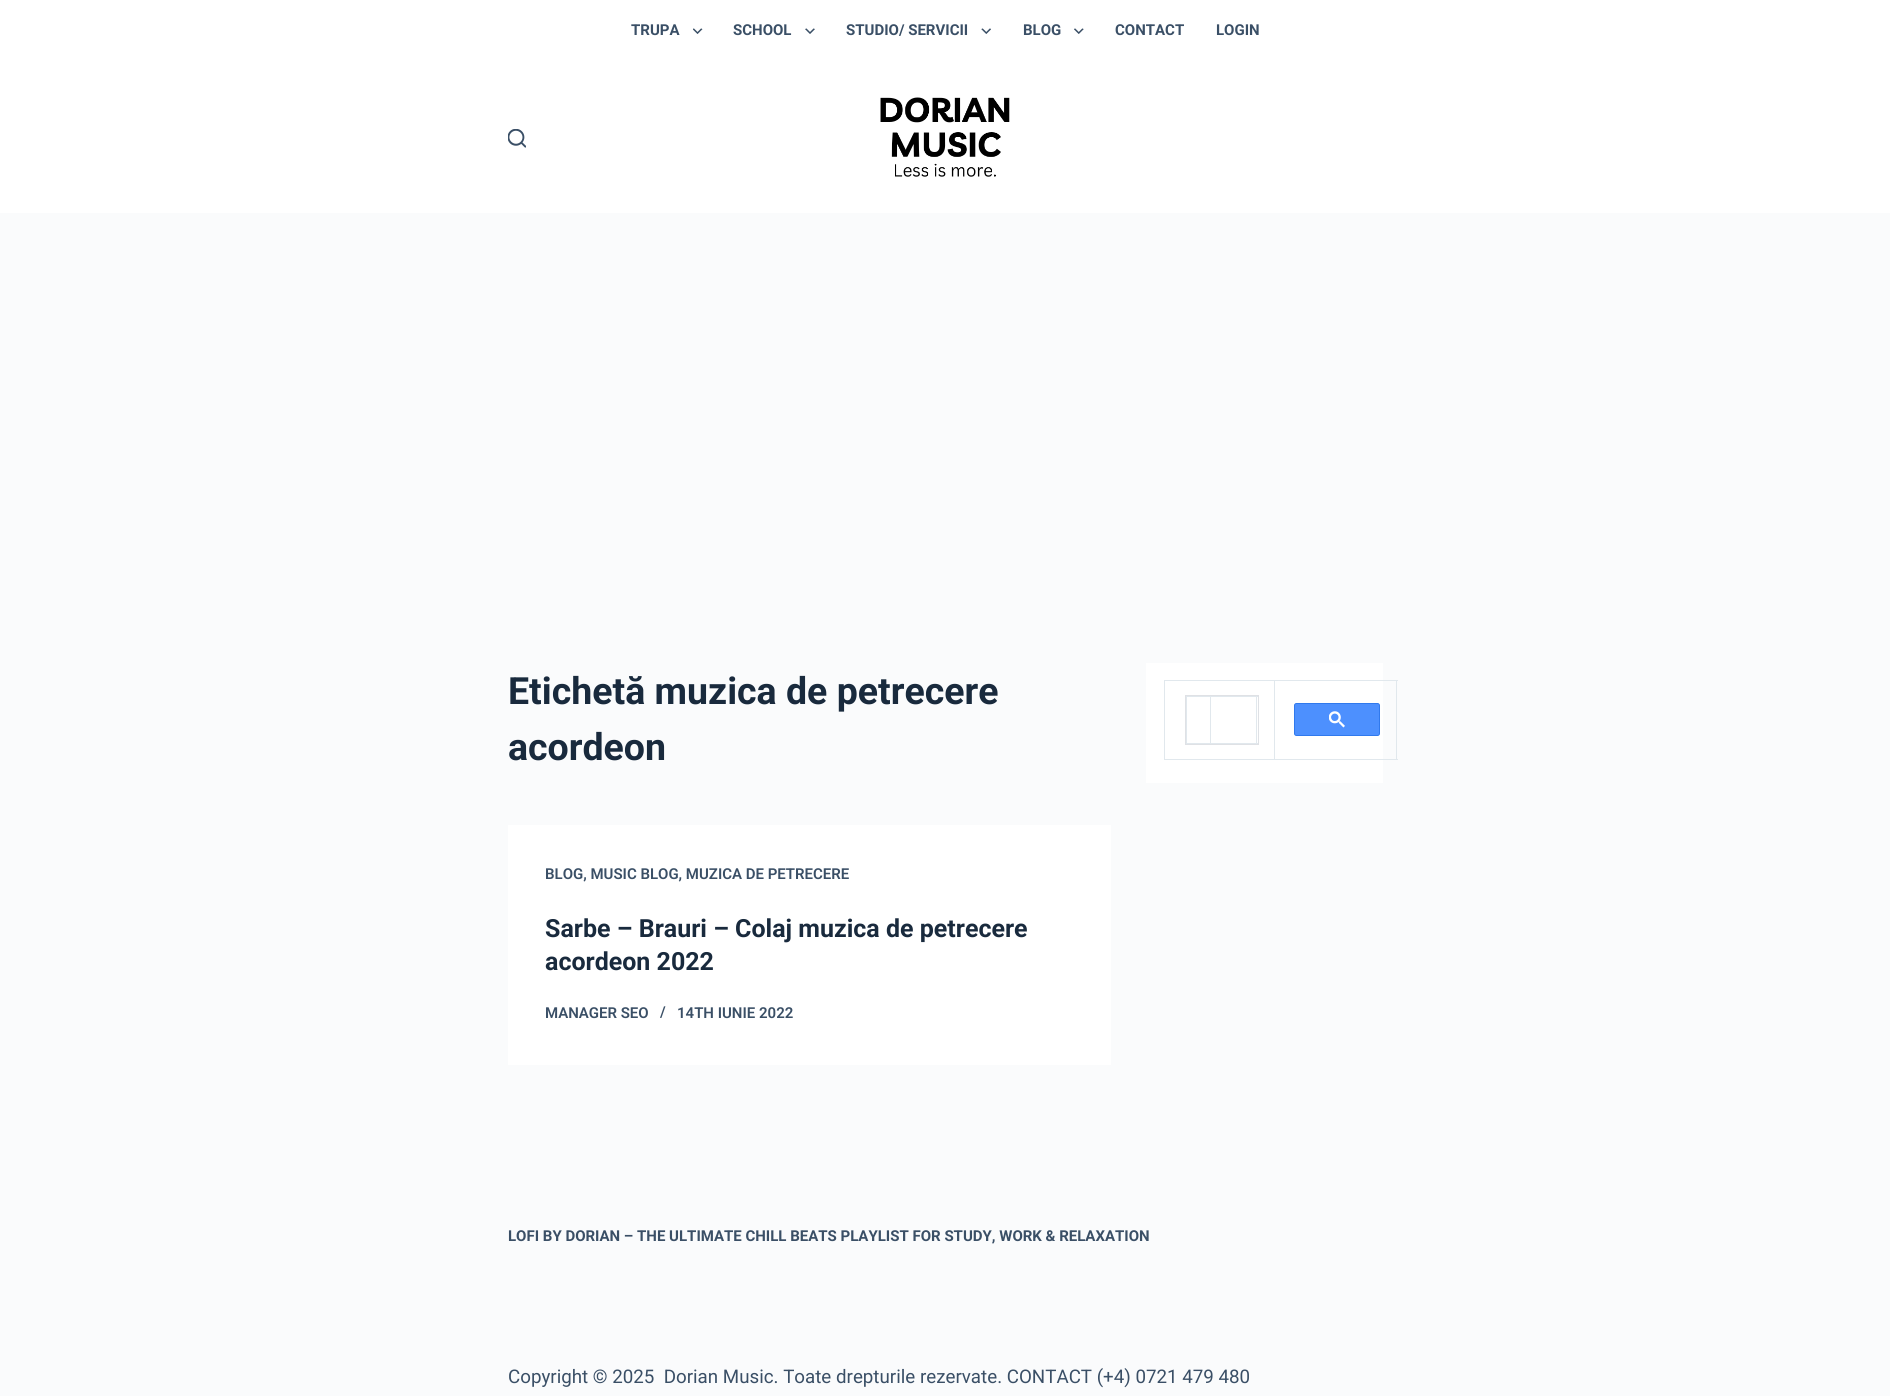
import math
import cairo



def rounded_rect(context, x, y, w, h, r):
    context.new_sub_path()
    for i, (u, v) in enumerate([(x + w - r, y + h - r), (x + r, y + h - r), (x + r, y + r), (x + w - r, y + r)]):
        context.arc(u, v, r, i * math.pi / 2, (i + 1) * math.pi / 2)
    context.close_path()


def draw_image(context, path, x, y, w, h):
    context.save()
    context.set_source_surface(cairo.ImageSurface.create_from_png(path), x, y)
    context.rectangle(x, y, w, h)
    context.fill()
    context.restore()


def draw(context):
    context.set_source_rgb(250 / 255, 251 / 255, 252 / 255)
    context.paint()
    context.set_source_rgb(1, 1, 1)
    context.rectangle(0, 0, 1890, 213)
    context.fill()
    draw_image(context, "images/1.png", 508, 129, 18, 19)
    draw_image(context, "images/2.png", 880, 97, 130, 80)
    draw_image(context, "images/3.png", 693, 28, 10, 6)
    draw_image(context, "images/4.png", 805, 28, 10, 6)
    draw_image(context, "images/5.png", 981, 28, 10, 6)
    draw_image(context, "images/6.png", 1074, 28, 10, 6)
    context.rectangle(508, 825, 603, 240)
    context.fill()
    context.rectangle(1146, 663, 237, 120)
    context.fill()
    context.set_source_rgb(225 / 255, 232 / 255, 237 / 255)
    context.rectangle(1274, 680, 124, 1)
    context.fill()
    context.rectangle(1396, 680, 1, 80)
    context.fill()
    context.rectangle(1274, 759, 124, 1)
    context.fill()
    context.rectangle(1274, 680, 1, 80)
    context.fill()
    context.rectangle(1164, 680, 111, 1)
    context.fill()
    context.rectangle(1164, 759, 111, 1)
    context.fill()
    context.rectangle(1164, 680, 1, 80)
    context.fill()
    context.rectangle(1185.5, 695.5, 73, 49)
    context.set_source_rgb(223 / 255, 225 / 255, 229 / 255)
    context.set_line_width(1)
    context.stroke()
    context.set_source_rgb(225 / 255, 232 / 255, 237 / 255)
    context.rectangle(1186, 696, 72, 1)
    context.fill()
    context.rectangle(1256, 696, 1, 48)
    context.fill()
    context.rectangle(1186, 743, 72, 1)
    context.fill()
    context.rectangle(1186, 696, 1, 48)
    context.fill()
    context.rectangle(1210, 696, 1, 48)
    context.fill()
    context.set_source_rgb(77 / 255, 144 / 255, 254 / 255)
    rounded_rect(context, 1294.5, 703.5, 85, 32, 2)
    context.fill_preserve()
    context.set_source_rgb(48 / 255, 121 / 255, 237 / 255)
    context.stroke()
    draw_image(context, "images/7.png", 1329, 711, 16, 17)
    context.select_font_face("Roboto", cairo.FontSlant.NORMAL, cairo.FontWeight.BOLD)
    context.set_font_size(15)
    context.set_source_rgb(58 / 255, 79 / 255, 102 / 255)
    context.move_to(631, 35)
    context.show_text("TRUPA")
    context.move_to(733, 35)
    context.show_text("SCHOOL")
    context.move_to(846, 35)
    context.show_text("STUDIO/ SERVICII")
    context.move_to(1023, 35)
    context.show_text("BLOG")
    context.move_to(1115, 35)
    context.show_text("CONTACT")
    context.move_to(1216, 35)
    context.show_text("LOGIN")
    context.set_font_size(37.5)
    context.set_source_rgb(25 / 255, 42 / 255, 61 / 255)
    context.move_to(508, 704)
    context.show_text("Etichetă muzica de petrecere")
    context.move_to(508, 760)
    context.show_text("acordeon")
    context.select_font_face("Roboto SemiBold")
    context.set_font_size(15)
    context.set_source_rgb(58 / 255, 79 / 255, 102 / 255)
    context.move_to(545, 879)
    context.show_text("BLOG, MUSIC BLOG, MUZICA DE PETRECERE")
    context.select_font_face("Roboto", cairo.FontSlant.NORMAL, cairo.FontWeight.BOLD)
    context.set_font_size(25)
    context.set_source_rgb(25 / 255, 42 / 255, 61 / 255)
    context.move_to(545, 937)
    context.show_text("Sarbe – Brauri – Colaj muzica de petrecere")
    context.move_to(545, 970)
    context.show_text("acordeon 2022")
    context.select_font_face("Roboto SemiBold")
    context.set_font_size(15)
    context.set_source_rgb(58 / 255, 79 / 255, 102 / 255)
    context.move_to(545, 1018)
    context.show_text("MANAGER SEO")
    context.move_to(660, 1017)
    context.show_text("/")
    context.move_to(677, 1018)
    context.show_text("14TH IUNIE 2022")
    context.select_font_face("Roboto", cairo.FontSlant.NORMAL, cairo.FontWeight.BOLD)
    context.move_to(508, 1241)
    context.show_text("LOFI BY DORIAN – THE ULTIMATE CHILL BEATS PLAYLIST FOR STUDY, WORK & RELAXATION")
    context.select_font_face("Roboto")
    context.set_font_size(18.75)
    context.move_to(508, 1383)
    context.show_text("Copyright © 2025  Dorian Music. Toate drepturile rezervate. CONTACT (+4) 0721 479 480")


surface = cairo.ImageSurface(cairo.Format.RGB24, 1890, 1396)
context = cairo.Context(surface)
options = cairo.FontOptions()
options.set_hint_metrics(cairo.HintMetrics.OFF)
options.set_hint_style(cairo.HintStyle.NONE)
context.set_font_options(options)
context.set_miter_limit(4)
draw(context)
surface.write_to_png("out.png")
